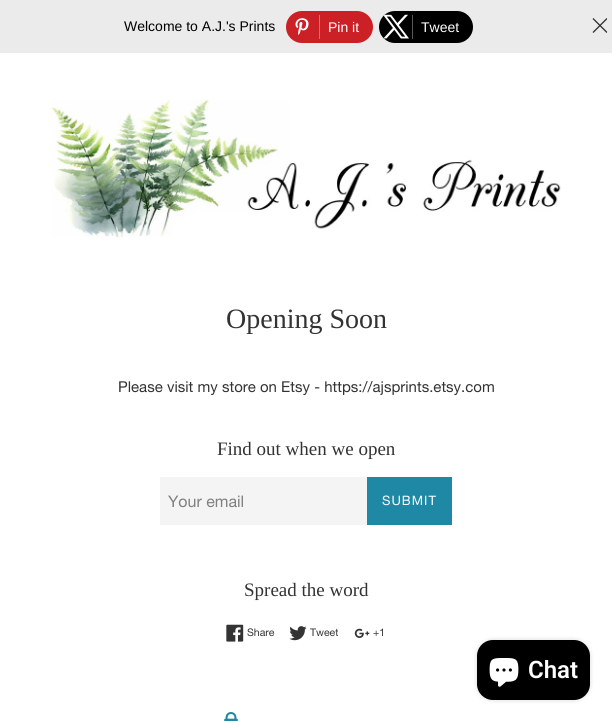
import math
import cairo



def draw_spaced(context, x, y, s, letter, word):
    context.move_to(x, y)
    for ch in s:
        context.show_text(ch)
        context.rel_move_to(letter + word * (ch == ' '), 0)


def rounded_rect(context, x, y, w, h, r):
    context.new_sub_path()
    for i, (u, v) in enumerate([(x + w - r, y + h - r), (x + r, y + h - r), (x + r, y + r), (x + w - r, y + r)]):
        context.arc(u, v, r, i * math.pi / 2, (i + 1) * math.pi / 2)
    context.close_path()


def draw_shadow(context, x, y, w, h, r, blur, alpha):
    context.push_group_with_content(cairo.Content.ALPHA)
    context.set_operator(cairo.Operator.SOURCE)
    for i in range(15, -16, -2):
        e = blur * i / 6
        if min(w, h) + 2 * e > 0:
            context.set_source_rgba(0, 0, 0, alpha * math.erfc((i - 1) / 8.5) / 2)
            rounded_rect(context, x - e, y - e, w + 2 * e, h + 2 * e, max(0, min(r + e + blur * .6, min(w, h) / 2 + e)))
            context.fill()
    context.mask(context.pop_group())


def draw_image(context, path, x, y, w, h):
    context.save()
    context.set_source_surface(cairo.ImageSurface.create_from_png(path), x, y)
    context.rectangle(x, y, w, h)
    context.fill()
    context.restore()


def draw(context):
    context.set_source_rgb(1, 1, 1)
    context.paint()
    context.set_source_rgb(235 / 255, 235 / 255, 235 / 255)
    context.rectangle(0, 0, 612, 53)
    context.fill()
    context.set_source_rgb(203 / 255, 32 / 255, 38 / 255)
    rounded_rect(context, 286, 11, 87, 32, 16)
    context.fill()
    context.set_source_rgb(221 / 255, 110 / 255, 114 / 255)
    context.rectangle(319, 15, 1, 24)
    context.fill()
    draw_image(context, "images/1.png", 295, 18, 14, 17)
    context.set_source_rgb(0, 0, 0)
    rounded_rect(context, 379, 11, 94, 32, 16)
    context.fill()
    context.set_source_rgb(89 / 255, 89 / 255, 89 / 255)
    context.rectangle(412, 15, 1, 24)
    context.fill()
    draw_image(context, "images/2.png", 383, 14, 26, 25)
    draw_image(context, "images/3.png", 592, 18, 15, 15)
    draw_image(context, "images/4.png", 51, 99, 510, 139)
    context.set_source_rgb(244 / 255, 244 / 255, 244 / 255)
    context.rectangle(160, 477, 207, 48)
    context.fill()
    context.set_source_rgb(31 / 255, 137 / 255, 165 / 255)
    context.rectangle(367, 477, 85, 48)
    context.fill()
    draw_image(context, "images/5.png", 226, 624, 18, 18)
    draw_image(context, "images/6.png", 289, 626, 18, 15)
    draw_image(context, "images/7.png", 354, 628, 16, 10)
    draw_image(context, "images/8.png", 224, 712, 14, 9)
    context.set_source_rgb(0, 0, 0)
    draw_shadow(context, 477, 640, 113, 60, 16, 2.5, 0.15)
    context.set_source_rgb(0, 0, 0)
    rounded_rect(context, 477, 640, 113, 60, 16)
    context.fill()
    draw_image(context, "images/9.png", 489, 658, 30, 29)
    context.select_font_face("Liberation Sans")
    context.set_font_size(14)
    context.move_to(124, 31)
    context.show_text("Welcome to A.J.'s Prints")
    context.set_source_rgb(1, 1, 1)
    context.move_to(328, 32)
    context.show_text("Pin it")
    context.move_to(421, 32)
    context.show_text("Tweet")
    context.select_font_face("Liberation Serif")
    context.set_font_size(28)
    context.set_source_rgb(51 / 255, 51 / 255, 51 / 255)
    context.move_to(226, 328)
    context.show_text("Opening Soon")
    context.select_font_face("Helvetica Neue")
    context.set_font_size(15)
    context.move_to(118, 392)
    context.show_text("Please visit my store on Etsy - https://ajsprints.etsy.com")
    context.select_font_face("Liberation Serif")
    context.set_font_size(19)
    context.move_to(217, 455)
    context.show_text("Find out when we open")
    context.select_font_face("Helvetica Neue")
    context.set_font_size(16)
    context.set_source_rgb(128 / 255, 128 / 255, 128 / 255)
    context.move_to(168, 507)
    context.show_text("Your email")
    context.set_font_size(13)
    context.set_source_rgb(1, 1, 1)
    draw_spaced(context, 382, 505, "SUBMIT", 1, 0)
    context.select_font_face("Liberation Serif")
    context.set_font_size(19)
    context.set_source_rgb(51 / 255, 51 / 255, 51 / 255)
    context.move_to(244, 596)
    context.show_text("Spread the word")
    context.select_font_face("Helvetica Neue")
    context.set_font_size(10.5)
    context.move_to(247, 636)
    context.show_text("Share")
    context.move_to(310, 636)
    context.show_text("Tweet")
    context.move_to(373, 636)
    context.show_text("+1")
    context.select_font_face("Roboto SemiBold")
    context.set_font_size(24)
    context.set_source_rgb(1, 1, 1)
    context.move_to(528, 678)
    context.show_text("Chat")


surface = cairo.ImageSurface(cairo.Format.RGB24, 612, 721)
context = cairo.Context(surface)
options = cairo.FontOptions()
options.set_hint_metrics(cairo.HintMetrics.OFF)
options.set_hint_style(cairo.HintStyle.NONE)
context.set_font_options(options)
context.set_miter_limit(4)
draw(context)
surface.write_to_png("out.png")
